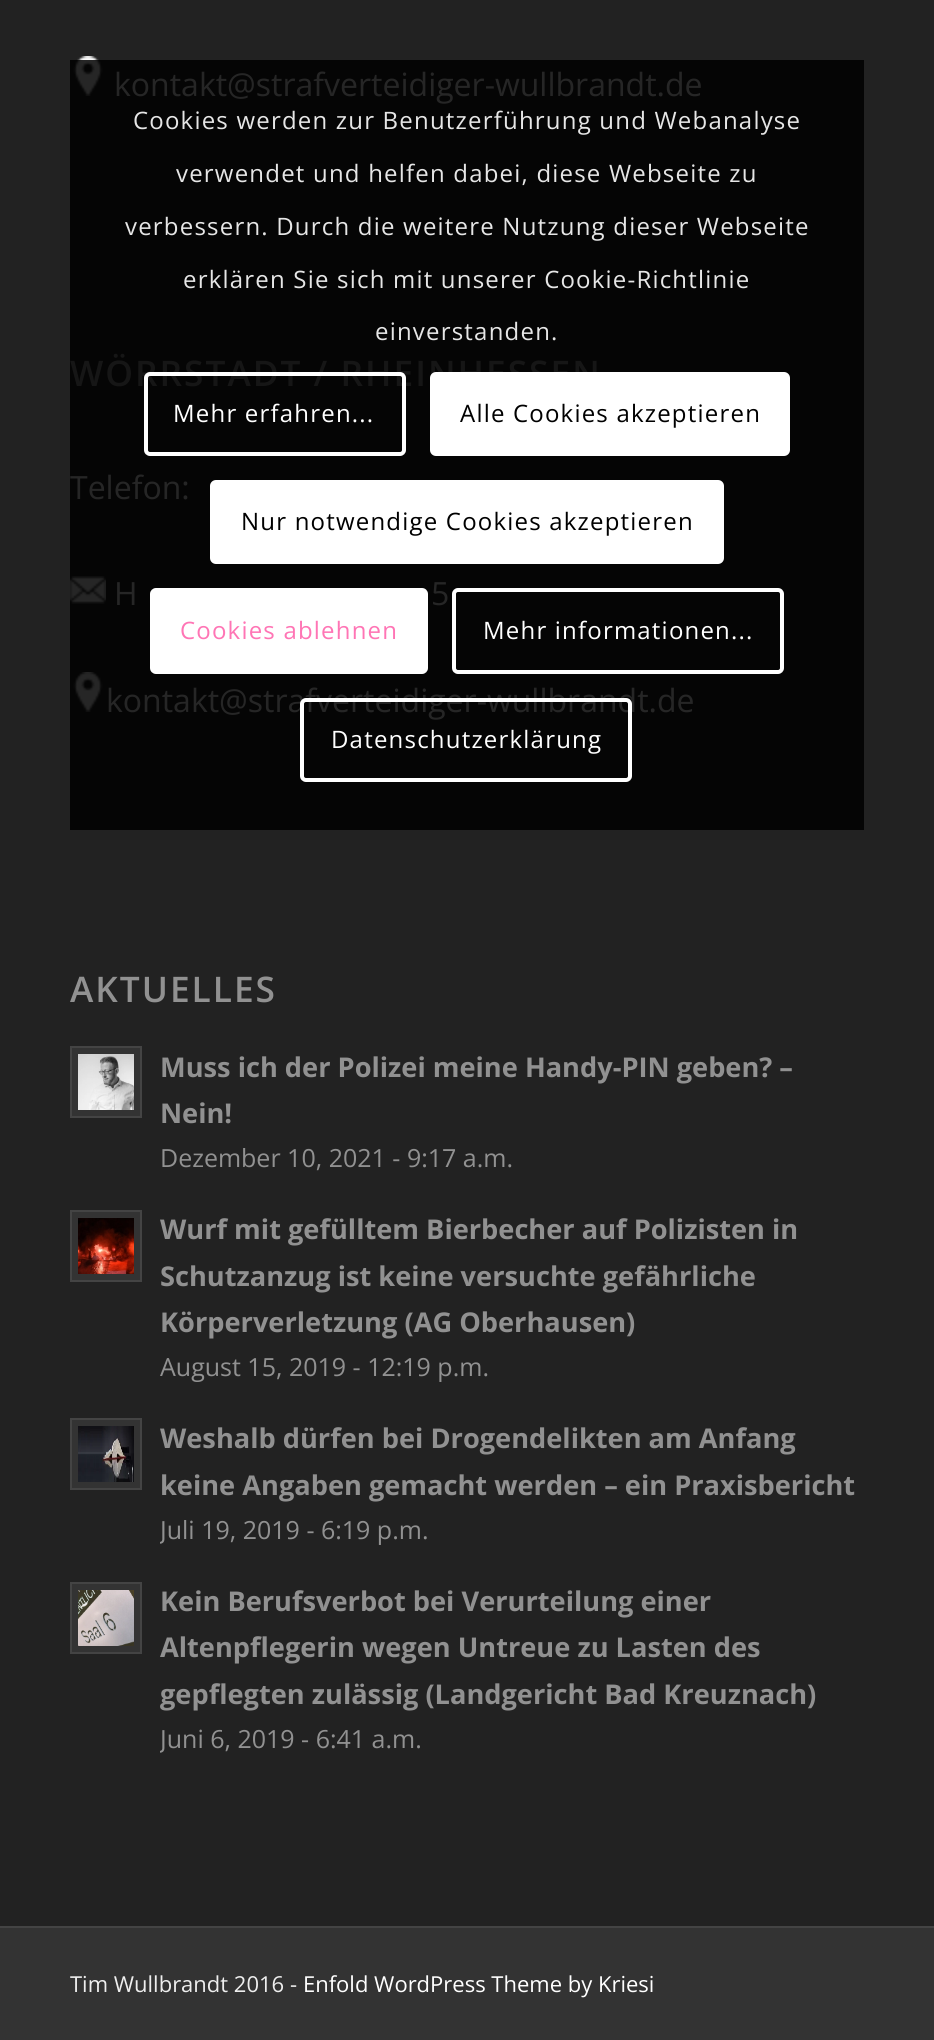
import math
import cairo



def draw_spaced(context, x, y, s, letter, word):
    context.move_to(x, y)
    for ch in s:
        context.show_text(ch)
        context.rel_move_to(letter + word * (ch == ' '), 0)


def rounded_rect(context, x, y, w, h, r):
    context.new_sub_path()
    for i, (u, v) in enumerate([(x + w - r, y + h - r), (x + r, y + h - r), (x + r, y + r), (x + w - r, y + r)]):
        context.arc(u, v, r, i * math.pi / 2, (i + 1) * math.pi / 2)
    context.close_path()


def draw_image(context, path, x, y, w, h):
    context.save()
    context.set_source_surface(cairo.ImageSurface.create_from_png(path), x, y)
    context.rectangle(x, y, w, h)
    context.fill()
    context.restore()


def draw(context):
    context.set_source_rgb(34 / 255, 34 / 255, 34 / 255)
    context.paint()
    context.set_source_rgb(5 / 255, 5 / 255, 5 / 255)
    context.rectangle(70, 60, 794, 770)
    context.fill()
    draw_image(context, "images/1.png", 73, 56, 30, 40)
    draw_image(context, "images/2.png", 70, 576, 36, 28)
    draw_image(context, "images/3.png", 73, 672, 30, 40)
    context.set_source_rgb(51 / 255, 51 / 255, 51 / 255)
    context.rectangle(71, 1047, 70, 70)
    context.fill_preserve()
    context.set_source_rgb(68 / 255, 68 / 255, 68 / 255)
    context.stroke()
    draw_image(context, "images/4.png", 78, 1054, 56, 56)
    context.set_source_rgb(51 / 255, 51 / 255, 51 / 255)
    context.rectangle(71, 1211, 70, 70)
    context.fill_preserve()
    context.set_source_rgb(68 / 255, 68 / 255, 68 / 255)
    context.stroke()
    draw_image(context, "images/5.png", 78, 1218, 56, 56)
    context.set_source_rgb(51 / 255, 51 / 255, 51 / 255)
    context.rectangle(71, 1419, 70, 70)
    context.fill_preserve()
    context.set_source_rgb(68 / 255, 68 / 255, 68 / 255)
    context.stroke()
    draw_image(context, "images/6.png", 78, 1426, 56, 56)
    context.set_source_rgb(51 / 255, 51 / 255, 51 / 255)
    context.rectangle(71, 1583, 70, 70)
    context.fill_preserve()
    context.set_source_rgb(68 / 255, 68 / 255, 68 / 255)
    context.stroke()
    draw_image(context, "images/7.png", 78, 1590, 56, 56)
    context.set_source_rgb(51 / 255, 51 / 255, 51 / 255)
    context.rectangle(0, 1928, 934, 112)
    context.fill()
    context.set_source_rgb(68 / 255, 68 / 255, 68 / 255)
    context.rectangle(0, 1926, 934, 2)
    context.fill()
    context.set_source_rgb(1, 1, 1)
    rounded_rect(context, 210, 480, 514, 84, 6)
    context.fill()
    rounded_rect(context, 152, 590, 274, 82, 4)
    context.fill_preserve()
    context.set_line_width(4)
    context.stroke()
    rounded_rect(context, 454, 590, 328, 82, 4)
    context.stroke()
    context.select_font_face("Open Sans")
    context.set_font_size(32)
    context.set_source_rgb(38 / 255, 38 / 255, 38 / 255)
    context.move_to(114, 96)
    context.show_text("kontakt@strafverteidiger-wullbrandt.de")
    context.select_font_face("Open Sans SemiBold")
    context.set_font_size(35.25)
    context.set_source_rgb(22 / 255, 22 / 255, 22 / 255)
    draw_spaced(context, 70, 386, "WÖRRSTADT / RHEINHESSEN", 2, 0)
    context.select_font_face("Open Sans")
    context.set_font_size(32)
    context.set_source_rgb(38 / 255, 38 / 255, 38 / 255)
    context.move_to(70, 499)
    context.show_text("Telefon:")
    context.move_to(114, 605)
    context.show_text("H")
    context.move_to(431, 605)
    context.show_text("5")
    context.move_to(106, 712)
    context.show_text("kontakt@strafverteidiger-wullbrandt.de")
    context.select_font_face("Open Sans SemiBold")
    context.set_font_size(35.25)
    context.set_source_rgb(145 / 255, 145 / 255, 145 / 255)
    draw_spaced(context, 70, 1002, "AKTUELLES", 2, 0)
    context.select_font_face("Open Sans", cairo.FontSlant.NORMAL, cairo.FontWeight.BOLD)
    context.set_font_size(27.2)
    context.move_to(160, 1077)
    context.show_text("Muss ich der Polizei meine Handy-PIN geben? –")
    context.move_to(160, 1123)
    context.show_text("Nein!")
    context.select_font_face("Open Sans")
    context.set_font_size(25)
    context.move_to(160, 1167)
    context.show_text("Dezember 10, 2021 - 9:17 a.m.")
    context.select_font_face("Open Sans", cairo.FontSlant.NORMAL, cairo.FontWeight.BOLD)
    context.set_font_size(27.2)
    context.move_to(160, 1239)
    context.show_text("Wurf mit gefülltem Bierbecher auf Polizisten in")
    context.move_to(160, 1286)
    context.show_text("Schutzanzug ist keine versuchte gefährliche")
    context.move_to(160, 1332)
    context.show_text("Körperverletzung (AG Oberhausen)")
    context.select_font_face("Open Sans")
    context.set_font_size(25)
    context.move_to(160, 1376)
    context.show_text("August 15, 2019 - 12:19 p.m.")
    context.select_font_face("Open Sans", cairo.FontSlant.NORMAL, cairo.FontWeight.BOLD)
    context.set_font_size(27.2)
    context.move_to(160, 1448)
    context.show_text("Weshalb dürfen bei Drogendelikten am Anfang")
    context.move_to(160, 1495)
    context.show_text("keine Angaben gemacht werden – ein Praxisbericht")
    context.save()
    context.rectangle(160, 1414, 704, 140)
    context.clip()
    context.select_font_face("Open Sans")
    context.set_font_size(25)
    context.move_to(160, 1539)
    context.show_text("Juli 19, 2019 - 6:19 p.m.")
    context.restore()
    context.move_to(160, 1611)
    context.show_text("Kein Berufsverbot bei Verurteilung einer")
    context.move_to(160, 1657)
    context.show_text("Altenpflegerin wegen Untreue zu Lasten des")
    context.move_to(160, 1704)
    context.show_text("gepflegten zulässig (Landgericht Bad Kreuznach)")
    context.save()
    context.rectangle(160, 1578, 704, 184)
    context.clip()
    context.select_font_face("Open Sans")
    context.set_font_size(25)
    context.move_to(160, 1748)
    context.show_text("Juni 6, 2019 - 6:41 a.m.")
    context.restore()
    context.select_font_face("Open Sans")
    context.set_font_size(22)
    context.set_source_rgb(238 / 255, 238 / 255, 238 / 255)
    context.move_to(70, 1992)
    context.show_text("Tim Wullbrandt 2016 -")
    context.set_source_rgb(1, 1, 1)
    context.move_to(303, 1992)
    context.show_text("Enfold WordPress Theme by Kriesi")
    context.set_font_size(24)
    context.set_source_rgb(230 / 255, 230 / 255, 230 / 255)
    draw_spaced(context, 133, 129, "Cookies werden zur Benutzerführung und Webanalyse", 1.2, 0)
    draw_spaced(context, 176, 182, "verwendet und helfen dabei, diese Webseite zu", 1.2, 0)
    draw_spaced(context, 125, 235, "verbessern. Durch die weitere Nutzung dieser Webseite", 1.2, 0)
    draw_spaced(context, 183, 288, "erklären Sie sich mit unserer Cookie-Richtlinie", 1.2, 0)
    draw_spaced(context, 375, 340, "einverstanden.", 1.2, 0)
    rounded_rect(context, 146, 374, 258, 80, 4)
    context.set_source_rgb(1, 1, 1)
    context.stroke()
    draw_spaced(context, 173, 422, "Mehr erfahren...", 1.2, 0)
    rounded_rect(context, 430, 372, 360, 84, 6)
    context.fill()
    context.set_source_rgb(0, 0, 0)
    draw_spaced(context, 460, 422, "Alle Cookies akzeptieren", 1.2, 0)
    draw_spaced(context, 241, 530, "Nur notwendige Cookies akzeptieren", 1.2, 0)
    context.set_source_rgb(1, 117 / 255, 181 / 255)
    draw_spaced(context, 180, 639, "Cookies ablehnen", 1.2, 0)
    context.set_source_rgb(1, 1, 1)
    draw_spaced(context, 483, 639, "Mehr informationen...", 1.2, 0)
    rounded_rect(context, 302, 700, 328, 80, 4)
    context.stroke()
    draw_spaced(context, 331, 748, "Datenschutzerklärung", 1.2, 0)


surface = cairo.ImageSurface(cairo.Format.RGB24, 934, 2040)
context = cairo.Context(surface)
options = cairo.FontOptions()
options.set_hint_metrics(cairo.HintMetrics.OFF)
options.set_hint_style(cairo.HintStyle.NONE)
context.set_font_options(options)
context.set_miter_limit(4)
draw(context)
surface.write_to_png("out.png")
